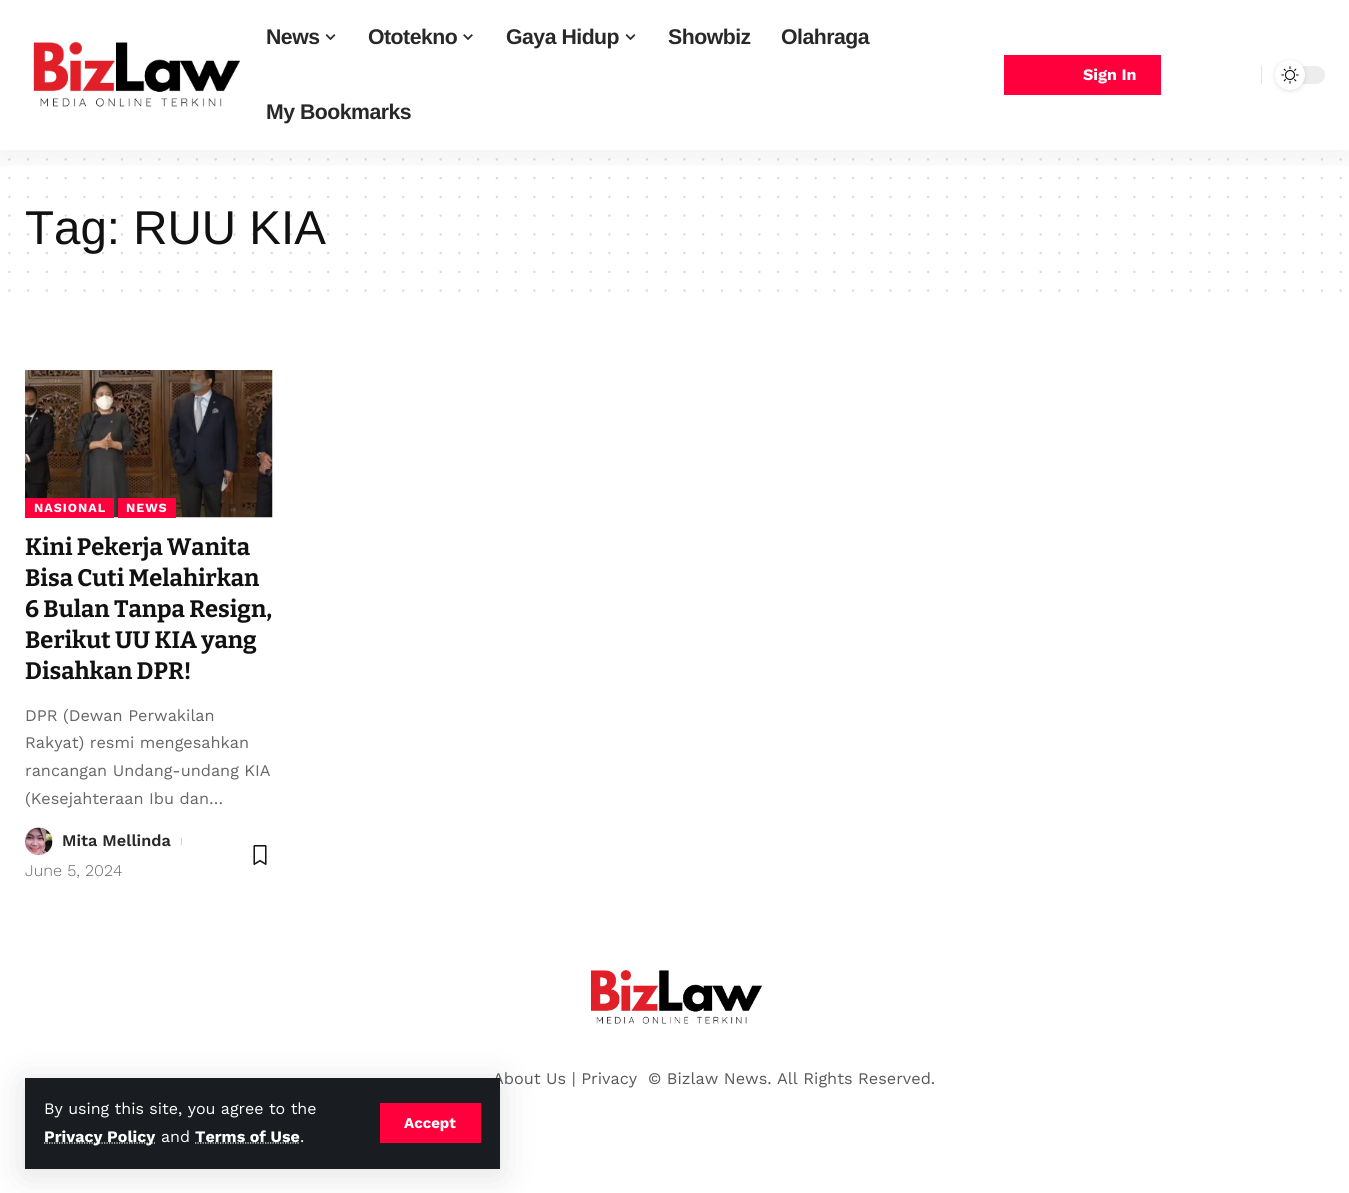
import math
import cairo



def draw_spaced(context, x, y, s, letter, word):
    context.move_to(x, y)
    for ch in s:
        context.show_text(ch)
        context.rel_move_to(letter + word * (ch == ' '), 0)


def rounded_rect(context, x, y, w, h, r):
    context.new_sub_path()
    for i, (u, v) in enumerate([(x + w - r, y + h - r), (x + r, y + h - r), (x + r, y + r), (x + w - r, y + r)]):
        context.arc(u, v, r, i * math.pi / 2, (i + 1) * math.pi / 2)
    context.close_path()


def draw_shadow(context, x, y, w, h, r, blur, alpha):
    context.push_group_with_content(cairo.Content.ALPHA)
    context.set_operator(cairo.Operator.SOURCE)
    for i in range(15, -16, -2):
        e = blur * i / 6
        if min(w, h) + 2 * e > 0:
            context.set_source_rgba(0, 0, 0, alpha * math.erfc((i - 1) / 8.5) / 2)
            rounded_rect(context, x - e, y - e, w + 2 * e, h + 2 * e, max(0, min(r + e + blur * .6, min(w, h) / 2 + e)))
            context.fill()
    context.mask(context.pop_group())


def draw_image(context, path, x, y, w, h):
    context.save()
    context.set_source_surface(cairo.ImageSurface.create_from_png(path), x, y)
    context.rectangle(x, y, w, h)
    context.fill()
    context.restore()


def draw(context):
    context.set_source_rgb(1, 1, 1)
    context.paint()
    context.new_path()
    context.move_to(9.4, 159.4)
    context.line_to(1340.9, 159.4)
    context.set_source_rgb(219 / 255, 219 / 255, 219 / 255)
    context.set_line_width(2.5)
    context.set_line_cap(cairo.LineCap.ROUND)
    context.set_dash([0, 18.75])
    context.stroke()
    context.new_path()
    context.move_to(9.4, 178.1)
    context.line_to(1340.9, 178.1)
    context.stroke()
    context.new_path()
    context.move_to(9.4, 196.9)
    context.line_to(1340.9, 196.9)
    context.stroke()
    context.save()
    context.rectangle(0, 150, 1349, 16)
    context.clip()
    context.set_source_rgb(0, 0, 0)
    draw_shadow(context, 0, 5, 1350, 150, 0, 19, 0.07)
    context.restore()
    draw_image(context, "images/1.png", 33, 42, 208, 65)
    draw_image(context, "images/2.png", 325, 34, 11, 7)
    draw_image(context, "images/3.png", 463, 34, 10, 6)
    draw_image(context, "images/2.png", 625, 34, 11, 7)
    context.set_source_rgb(1, 0, 60 / 255)
    context.rectangle(1004, 55, 157, 40)
    context.fill()
    context.set_source_rgb(228 / 255, 228 / 255, 228 / 255)
    context.rectangle(1261, 66, 1, 18)
    context.fill()
    context.set_source_rgb(237 / 255, 237 / 255, 237 / 255)
    rounded_rect(context, 1275, 66, 50, 18, 9)
    context.fill()
    context.set_source_rgb(0, 0, 0)
    draw_shadow(context, 1275, 61, 30, 30, 15, 2.5, 0.12)
    context.set_source_rgb(1, 1, 1)
    context.arc(1290, 75, 15, 0, 2 * math.pi)
    context.fill()
    draw_image(context, "images/4.png", 1281, 66, 18, 18)
    context.set_source_rgb(0, 0, 0)
    draw_shadow(context, 25, 1083, 475, 91, 0, 19, 0.12)
    context.new_path()
    context.move_to(9.4, 271.9)
    context.line_to(1340.9, 271.9)
    context.set_source_rgb(219 / 255, 219 / 255, 219 / 255)
    context.stroke()
    context.new_path()
    context.move_to(9.4, 290.6)
    context.line_to(1340.9, 290.6)
    context.stroke()
    draw_image(context, "images/5.png", 25, 370, 248, 148)
    context.set_source_rgb(1, 0, 60 / 255)
    context.rectangle(25, 498, 89, 20)
    context.fill()
    context.rectangle(118, 498, 58, 20)
    context.fill()
    draw_image(context, "images/6.png", 25, 827, 28, 28)
    context.set_source_rgb(209 / 255, 209 / 255, 209 / 255)
    context.rectangle(181, 838, 1, 7)
    context.fill()
    draw_image(context, "images/7.png", 253, 845, 14, 20)
    draw_image(context, "images/8.png", 590, 970, 173, 54)
    context.select_font_face("Liberation Sans", cairo.FontSlant.NORMAL, cairo.FontWeight.BOLD)
    context.set_font_size(21.25)
    context.set_source_rgb(40 / 255, 40 / 255, 40 / 255)
    draw_spaced(context, 266, 44, "News", -0.5, 0)
    draw_spaced(context, 368, 44, "Ototekno", -0.5, 0)
    draw_spaced(context, 506, 44, "Gaya Hidup", -0.5, 0)
    draw_spaced(context, 668, 44, "Showbiz", -0.5, 0)
    draw_spaced(context, 781, 44, "Olahraga", -0.5, 0)
    draw_spaced(context, 266, 119, "My Bookmarks", -0.5, 0)
    context.select_font_face("Work Sans", cairo.FontSlant.NORMAL, cairo.FontWeight.BOLD)
    context.set_font_size(16)
    context.set_source_rgb(1, 1, 1)
    context.move_to(1083, 80)
    context.show_text("Sign In")
    context.select_font_face("Liberation Sans")
    context.set_font_size(47.5)
    context.set_source_rgb(17 / 255, 17 / 255, 17 / 255)
    context.move_to(25, 244)
    context.show_text("Tag: RUU KIA")
    context.new_path()
    context.move_to(9.4, 253.1)
    context.line_to(1340.9, 253.1)
    context.set_source_rgb(219 / 255, 219 / 255, 219 / 255)
    context.stroke()
    context.new_path()
    context.move_to(9.4, 234.4)
    context.line_to(1340.9, 234.4)
    context.set_source_rgba(17 / 255, 17 / 255, 17 / 255, 0.15)
    context.stroke()
    context.new_path()
    context.move_to(9.4, 215.6)
    context.line_to(1340.9, 215.6)
    context.stroke()
    context.select_font_face("Work Sans", cairo.FontSlant.NORMAL, cairo.FontWeight.BOLD)
    context.set_font_size(12.5)
    context.set_source_rgb(1, 1, 1)
    draw_spaced(context, 34, 512, "NASIONAL", 1, 0)
    draw_spaced(context, 126, 512, "NEWS", 1, 0)
    context.select_font_face("Bitter", cairo.FontSlant.NORMAL, cairo.FontWeight.BOLD)
    context.set_font_size(23.75)
    context.set_source_rgb(17 / 255, 17 / 255, 17 / 255)
    context.move_to(25, 555)
    context.show_text("Kini Pekerja Wanita")
    context.move_to(25, 586)
    context.show_text("Bisa Cuti Melahirkan")
    context.move_to(25, 617)
    context.show_text("6 Bulan Tanpa Resign,")
    context.move_to(25, 648)
    context.show_text("Berikut UU KIA yang")
    context.move_to(25, 679)
    context.show_text("Disahkan DPR!")
    context.select_font_face("Work Sans")
    context.set_font_size(16.25)
    context.set_source_rgb(102 / 255, 102 / 255, 102 / 255)
    context.move_to(25, 721)
    context.show_text("DPR (Dewan Perwakilan")
    context.move_to(25, 748)
    context.show_text("Rakyat) resmi mengesahkan")
    context.move_to(25, 776)
    context.show_text("rancangan Undang-undang KIA")
    context.move_to(25, 804)
    context.show_text("(Kesejahteraan Ibu dan…")
    context.select_font_face("Work Sans SemiBold")
    context.set_source_rgb(40 / 255, 40 / 255, 40 / 255)
    context.move_to(62, 846)
    context.show_text("Mita Mellinda")
    context.select_font_face("Work Sans Light")
    context.set_source_rgb(102 / 255, 102 / 255, 102 / 255)
    context.move_to(25, 876)
    context.show_text("June 5, 2024")
    context.select_font_face("Work Sans")
    context.set_source_rgb(88 / 255, 88 / 255, 88 / 255)
    context.move_to(493, 1084)
    context.show_text("About Us | Privacy")
    context.set_source_rgb(25 / 255, 28 / 255, 32 / 255)
    context.rectangle(25, 1078, 475, 91)
    context.fill()
    context.set_source_rgb(1, 0, 60 / 255)
    context.rectangle(380, 1103, 101, 40)
    context.fill()
    context.select_font_face("Work Sans", cairo.FontSlant.NORMAL, cairo.FontWeight.BOLD)
    context.set_font_size(15)
    context.set_source_rgb(1, 1, 1)
    context.move_to(404, 1128)
    context.show_text("Accept")
    context.select_font_face("Work Sans")
    context.set_font_size(16)
    context.move_to(300, 1142)
    context.show_text(".")
    context.new_path()
    context.move_to(195, 1143)
    context.line_to(299.5, 1143)
    context.set_line_width(1.2)
    context.set_line_cap(cairo.LineCap.BUTT)
    context.set_dash([1.25, 1.25])
    context.stroke()
    context.select_font_face("Work Sans", cairo.FontSlant.NORMAL, cairo.FontWeight.BOLD)
    context.move_to(195, 1142)
    context.show_text("Terms of Use")
    context.select_font_face("Work Sans")
    context.move_to(161, 1142)
    context.show_text("and")
    context.new_path()
    context.move_to(44, 1143)
    context.line_to(155, 1143)
    context.stroke()
    context.select_font_face("Work Sans", cairo.FontSlant.NORMAL, cairo.FontWeight.BOLD)
    context.move_to(44, 1142)
    context.show_text("Privacy Policy")
    context.select_font_face("Work Sans")
    context.move_to(44, 1114)
    context.show_text("By using this site, you agree to the")
    context.set_font_size(16.25)
    context.set_source_rgb(88 / 255, 88 / 255, 88 / 255)
    context.move_to(648, 1084)
    context.show_text("© Bizlaw News. All Rights Reserved.")


surface = cairo.ImageSurface(cairo.Format.RGB24, 1349, 1193)
context = cairo.Context(surface)
options = cairo.FontOptions()
options.set_hint_metrics(cairo.HintMetrics.OFF)
options.set_hint_style(cairo.HintStyle.NONE)
context.set_font_options(options)
context.set_miter_limit(4)
draw(context)
surface.write_to_png("out.png")
